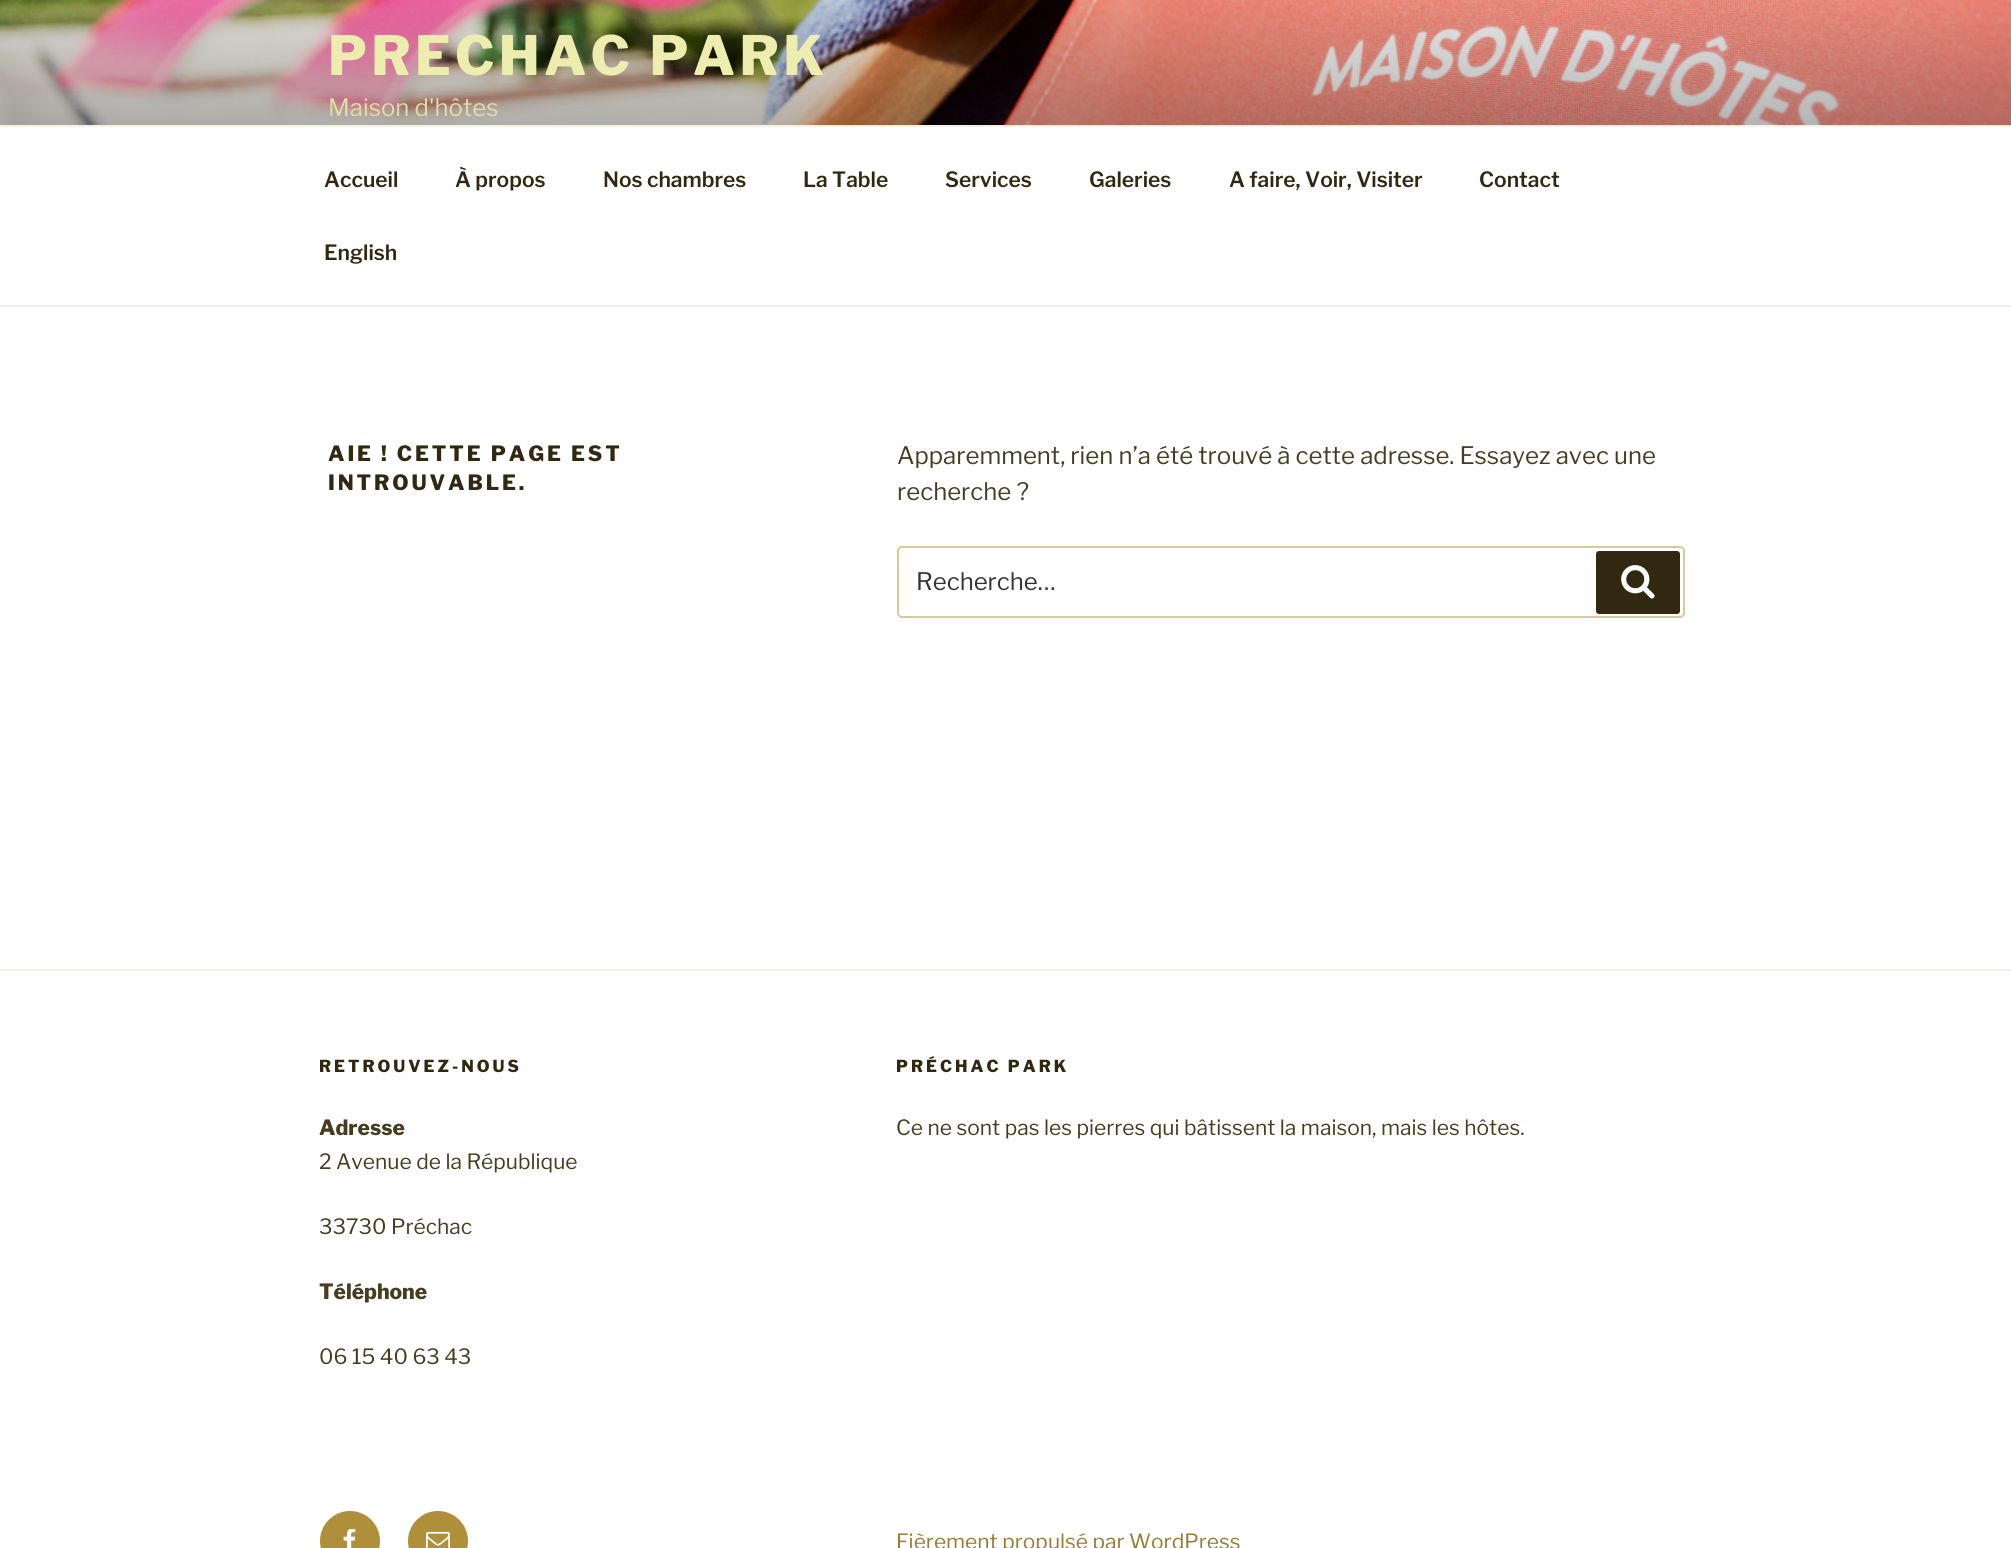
import math
import cairo



def draw_spaced(context, x, y, s, letter, word):
    context.move_to(x, y)
    for ch in s:
        context.show_text(ch)
        context.rel_move_to(letter + word * (ch == ' '), 0)


def rounded_rect(context, x, y, w, h, r):
    context.new_sub_path()
    for i, (u, v) in enumerate([(x + w - r, y + h - r), (x + r, y + h - r), (x + r, y + r), (x + w - r, y + r)]):
        context.arc(u, v, r, i * math.pi / 2, (i + 1) * math.pi / 2)
    context.close_path()


def draw_image(context, path, x, y, w, h):
    context.save()
    context.set_source_surface(cairo.ImageSurface.create_from_png(path), x, y)
    context.rectangle(x, y, w, h)
    context.fill()
    context.restore()


def draw(context):
    context.set_source_rgb(1, 1, 1)
    context.paint()
    draw_image(context, "images/1.png", 0, 0, 2011, 125)
    context.set_source_rgb(246 / 255, 241 / 255, 228 / 255)
    context.rectangle(0, 125, 2011, 2)
    context.fill()
    context.rectangle(0, 305, 2011, 2)
    context.fill()
    rounded_rect(context, 898, 547, 786, 70, 4)
    context.set_source_rgb(221 / 255, 201 / 255, 152 / 255)
    context.stroke()
    context.set_source_rgb(50 / 255, 40 / 255, 17 / 255)
    rounded_rect(context, 1596, 551, 84, 63, 3)
    context.fill()
    draw_image(context, "images/2.png", 1621, 565, 34, 34)
    context.set_source_rgb(246 / 255, 241 / 255, 228 / 255)
    context.rectangle(0, 969, 2011, 2)
    context.fill()
    context.set_source_rgb(176 / 255, 143 / 255, 59 / 255)
    context.arc(350, 1541, 30, 0, 2 * math.pi)
    context.fill()
    draw_image(context, "images/3.png", 343, 1529, 13, 19)
    context.arc(438, 1541, 30, 0, 2 * math.pi)
    context.fill()
    draw_image(context, "images/4.png", 426, 1531, 24, 17)
    context.select_font_face("Libre Franklin Thin")
    context.set_font_size(54)
    context.set_source_rgb(237 / 255, 237 / 255, 175 / 255)
    draw_spaced(context, 328, 75, "PRECHAC PARK", 4.25, 0)
    context.select_font_face("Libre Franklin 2 Thin")
    context.set_font_size(24)
    context.set_source_rgb(225 / 255, 219 / 255, 168 / 255)
    context.move_to(328, 116)
    context.show_text("Maison d'hôtes")
    context.select_font_face("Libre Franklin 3 Thin")
    context.set_font_size(21)
    context.set_source_rgb(50 / 255, 40 / 255, 17 / 255)
    context.move_to(324, 187)
    context.show_text("Accueil")
    context.move_to(455, 187)
    context.show_text("À propos")
    context.move_to(603, 187)
    context.show_text("Nos chambres")
    context.move_to(803, 187)
    context.show_text("La Table")
    context.move_to(945, 187)
    context.show_text("Services")
    context.move_to(1089, 187)
    context.show_text("Galeries")
    context.move_to(1229, 187)
    context.show_text("A faire, Voir, Visiter")
    context.move_to(1479, 187)
    context.show_text("Contact")
    context.move_to(324, 260)
    context.show_text("English")
    context.select_font_face("Libre Franklin Thin")
    draw_spaced(context, 328, 461, "AIE ! CETTE PAGE EST", 2.9, 0)
    draw_spaced(context, 328, 490, "INTROUVABLE.", 2.9, 0)
    context.select_font_face("Libre Franklin 2 Thin")
    context.set_font_size(24)
    context.set_source_rgb(71 / 255, 60 / 255, 31 / 255)
    context.move_to(897, 464)
    context.show_text("Apparemment, rien n’a été trouvé à cette adresse. Essayez avec une")
    context.move_to(897, 500)
    context.show_text("recherche ?")
    context.set_source_rgb(51 / 255, 51 / 255, 51 / 255)
    context.move_to(916, 590)
    context.show_text("Recherche…")
    context.select_font_face("Libre Franklin Thin")
    context.set_font_size(16.5)
    context.set_source_rgb(50 / 255, 40 / 255, 17 / 255)
    draw_spaced(context, 319, 1072, "RETROUVEZ-NOUS", 3, 0)
    context.set_font_size(21)
    context.set_source_rgb(71 / 255, 60 / 255, 31 / 255)
    context.move_to(319, 1135)
    context.show_text("Adresse")
    context.select_font_face("Libre Franklin 2 Thin")
    context.move_to(319, 1169)
    context.show_text("2 Avenue de la République")
    context.move_to(319, 1234)
    context.show_text("33730 Préchac")
    context.select_font_face("Libre Franklin Thin")
    context.move_to(319, 1299)
    context.show_text("Téléphone")
    context.select_font_face("Libre Franklin 2 Thin")
    context.move_to(319, 1364)
    context.show_text("06 15 40 63 43")
    context.select_font_face("Libre Franklin Thin")
    context.set_font_size(16.5)
    context.set_source_rgb(50 / 255, 40 / 255, 17 / 255)
    draw_spaced(context, 896, 1072, "PRÉCHAC PARK", 3, 0)
    context.select_font_face("Libre Franklin 2 Thin")
    context.set_font_size(21)
    context.set_source_rgb(71 / 255, 60 / 255, 31 / 255)
    context.move_to(896, 1135)
    context.show_text("Ce ne sont pas les pierres qui bâtissent la maison, mais les hôtes.")
    context.set_source_rgb(153 / 255, 124 / 255, 51 / 255)
    context.move_to(896, 1549)
    context.show_text("Fièrement propulsé par WordPress")


surface = cairo.ImageSurface(cairo.Format.RGB24, 2011, 1548)
context = cairo.Context(surface)
options = cairo.FontOptions()
options.set_hint_metrics(cairo.HintMetrics.OFF)
options.set_hint_style(cairo.HintStyle.NONE)
context.set_font_options(options)
context.set_miter_limit(4)
draw(context)
surface.write_to_png("out.png")
